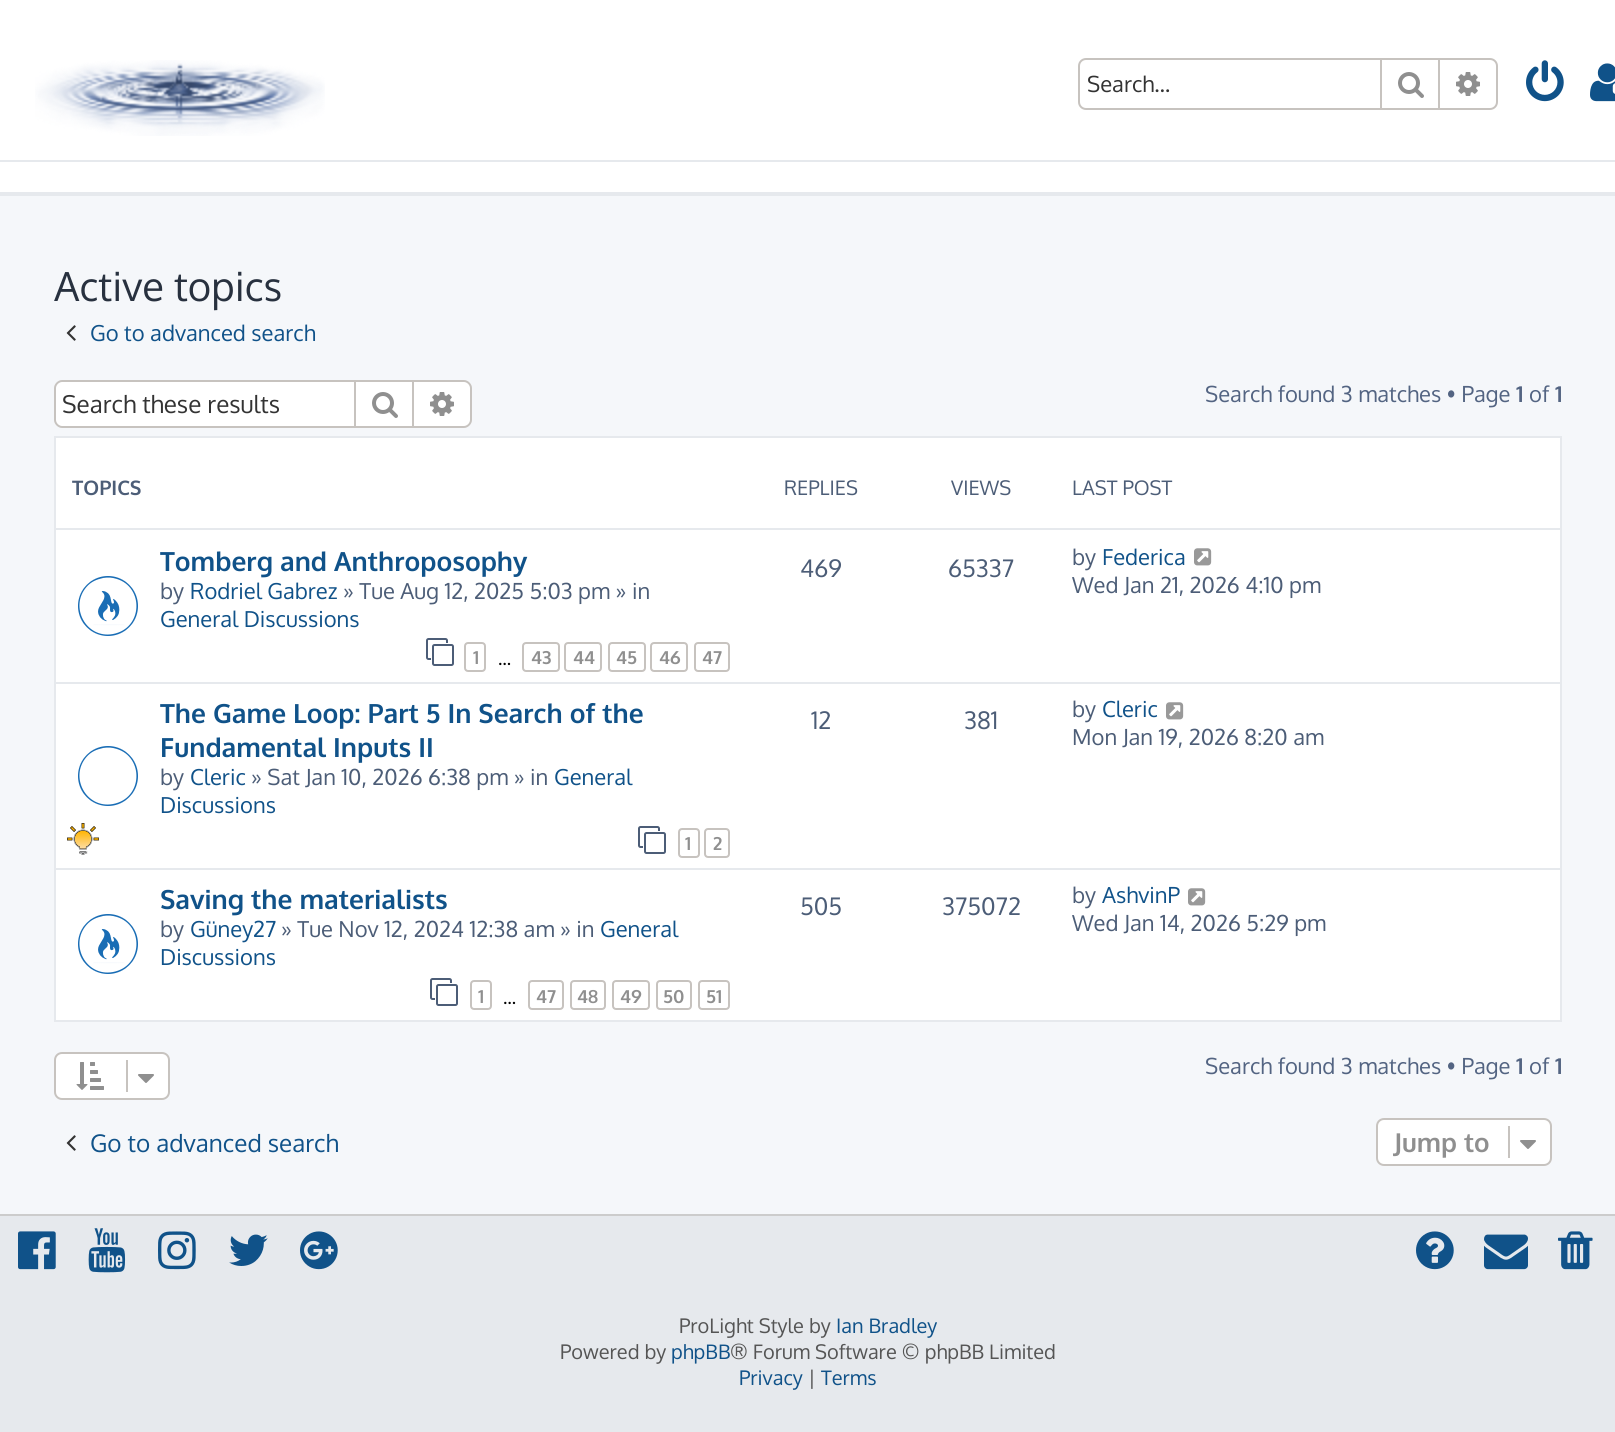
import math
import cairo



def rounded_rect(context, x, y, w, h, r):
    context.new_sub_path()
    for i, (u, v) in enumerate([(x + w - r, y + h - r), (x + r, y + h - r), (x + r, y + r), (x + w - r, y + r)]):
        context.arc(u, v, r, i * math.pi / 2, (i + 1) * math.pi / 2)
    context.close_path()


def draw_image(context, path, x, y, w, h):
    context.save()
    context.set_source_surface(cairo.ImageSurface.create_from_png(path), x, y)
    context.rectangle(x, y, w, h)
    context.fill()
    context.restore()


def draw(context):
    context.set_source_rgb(245 / 255, 247 / 255, 250 / 255)
    context.paint()
    context.set_source_rgb(1, 1, 1)
    context.rectangle(0, 0, 1615, 160)
    context.fill()
    context.set_source_rgb(230 / 255, 233 / 255, 237 / 255)
    context.rectangle(0, 160, 1615, 2)
    context.fill()
    draw_image(context, "images/1.png", 35, 60, 290, 76)
    rounded_rect(context, 1079, 59, 418, 50, 7)
    context.set_source_rgb(199 / 255, 195 / 255, 191 / 255)
    context.stroke()
    context.rectangle(1438, 60, 2, 48)
    context.fill()
    context.rectangle(1380, 60, 2, 48)
    context.fill()
    draw_image(context, "images/2.png", 1398, 72, 26, 26)
    draw_image(context, "images/3.png", 1456, 72, 24, 24)
    draw_image(context, "images/4.png", 1526, 60, 38, 42)
    draw_image(context, "images/5.png", 1590, 63, 25, 39)
    context.set_source_rgb(1, 1, 1)
    context.rectangle(0, 162, 1615, 30)
    context.fill()
    context.set_source_rgb(230 / 255, 233 / 255, 237 / 255)
    context.rectangle(0, 192, 1615, 4)
    context.fill()
    draw_image(context, "images/6.png", 66, 325, 10, 16)
    context.set_source_rgb(1, 1, 1)
    context.new_path()
    context.move_to(62, 382)
    context.line_to(354, 382)
    context.line_to(354, 426)
    context.line_to(62, 426)
    context.curve_to(58.5, 426, 56, 423.5, 56, 420)
    context.line_to(56, 388)
    context.curve_to(56, 384.5, 58.5, 382, 62, 382)
    context.close_path()
    context.fill()
    context.set_source_rgb(199 / 255, 195 / 255, 191 / 255)
    context.set_fill_rule(cairo.FillRule.EVEN_ODD)
    context.new_path()
    context.move_to(62, 380)
    context.line_to(354, 380)
    context.line_to(354, 428)
    context.line_to(62, 428)
    context.curve_to(58, 428, 54, 424, 54, 420)
    context.line_to(54, 388)
    context.curve_to(54, 384, 58, 380, 62, 380)
    context.close_path()
    context.move_to(62, 382)
    context.line_to(354, 382)
    context.line_to(354, 426)
    context.line_to(62, 426)
    context.curve_to(59, 426, 56, 423, 56, 420)
    context.line_to(56, 388)
    context.curve_to(56, 385, 59, 382, 62, 382)
    context.close_path()
    context.fill()
    context.set_source_rgb(1, 1, 1)
    context.rectangle(355, 381, 58, 46)
    context.fill_preserve()
    context.set_source_rgb(199 / 255, 195 / 255, 191 / 255)
    context.stroke()
    draw_image(context, "images/2.png", 372, 392, 26, 26)
    context.set_source_rgb(1, 1, 1)
    context.new_path()
    context.move_to(414, 382)
    context.line_to(464, 382)
    context.curve_to(467.5, 382, 470, 384.5, 470, 388)
    context.line_to(470, 420)
    context.curve_to(470, 423.5, 467.5, 426, 464, 426)
    context.line_to(414, 426)
    context.close_path()
    context.fill()
    context.set_source_rgb(199 / 255, 195 / 255, 191 / 255)
    context.new_path()
    context.move_to(414, 380)
    context.line_to(464, 380)
    context.curve_to(468, 380, 472, 384, 472, 388)
    context.line_to(472, 420)
    context.curve_to(472, 424, 468, 428, 464, 428)
    context.line_to(414, 428)
    context.close_path()
    context.move_to(414, 382)
    context.line_to(464, 382)
    context.curve_to(467, 382, 470, 385, 470, 388)
    context.line_to(470, 420)
    context.curve_to(470, 423, 467, 426, 464, 426)
    context.line_to(414, 426)
    context.close_path()
    context.fill()
    draw_image(context, "images/3.png", 430, 392, 24, 24)
    context.set_source_rgb(1, 1, 1)
    context.rectangle(55, 437, 1506, 584)
    context.fill_preserve()
    context.set_source_rgb(230 / 255, 233 / 255, 237 / 255)
    context.stroke()
    context.rectangle(56, 528, 1504, 2)
    context.fill()
    draw_image(context, "images/7.png", 78, 576, 60, 60)
    draw_image(context, "images/8.png", 426, 638, 28, 28)
    rounded_rect(context, 465, 643, 20, 28, 3)
    context.set_source_rgb(199 / 255, 195 / 255, 191 / 255)
    context.stroke()
    rounded_rect(context, 523, 643, 36, 28, 3)
    context.stroke()
    rounded_rect(context, 565, 643, 36, 28, 3)
    context.stroke()
    rounded_rect(context, 609, 643, 36, 28, 3)
    context.stroke()
    rounded_rect(context, 651, 643, 36, 28, 3)
    context.stroke()
    rounded_rect(context, 695, 643, 34, 28, 3)
    context.stroke()
    draw_image(context, "images/9.png", 1194, 548, 18, 18)
    context.set_source_rgb(230 / 255, 233 / 255, 237 / 255)
    context.rectangle(56, 682, 1504, 2)
    context.fill()
    draw_image(context, "images/10.png", 78, 746, 60, 60)
    draw_image(context, "images/11.png", 67, 823, 32, 32)
    draw_image(context, "images/8.png", 638, 826, 28, 28)
    rounded_rect(context, 679, 829, 20, 28, 3)
    context.set_source_rgb(199 / 255, 195 / 255, 191 / 255)
    context.stroke()
    rounded_rect(context, 705, 829, 24, 28, 3)
    context.stroke()
    draw_image(context, "images/9.png", 1166, 702, 18, 18)
    context.set_source_rgb(230 / 255, 233 / 255, 237 / 255)
    context.rectangle(56, 868, 1504, 2)
    context.fill()
    draw_image(context, "images/7.png", 78, 914, 60, 60)
    draw_image(context, "images/8.png", 430, 978, 28, 28)
    rounded_rect(context, 471, 981, 20, 28, 3)
    context.set_source_rgb(199 / 255, 195 / 255, 191 / 255)
    context.stroke()
    rounded_rect(context, 529, 981, 34, 28, 3)
    context.stroke()
    rounded_rect(context, 571, 981, 34, 28, 3)
    context.stroke()
    rounded_rect(context, 613, 981, 36, 28, 3)
    context.stroke()
    rounded_rect(context, 657, 981, 34, 28, 3)
    context.stroke()
    rounded_rect(context, 699, 981, 30, 28, 3)
    context.stroke()
    draw_image(context, "images/9.png", 1188, 888, 18, 18)
    context.set_source_rgb(1, 1, 1)
    rounded_rect(context, 55, 1053, 114, 46, 7)
    context.fill_preserve()
    context.set_source_rgb(199 / 255, 195 / 255, 191 / 255)
    context.stroke()
    draw_image(context, "images/12.png", 76, 1062, 28, 28)
    context.rectangle(126, 1060, 2, 32)
    context.fill()
    draw_image(context, "images/13.png", 138, 1074, 16, 9)
    draw_image(context, "images/6.png", 66, 1135, 10, 16)
    context.set_source_rgb(1, 1, 1)
    rounded_rect(context, 1377, 1119, 174, 46, 7)
    context.fill_preserve()
    context.set_source_rgb(199 / 255, 195 / 255, 191 / 255)
    context.stroke()
    context.rectangle(1508, 1126, 2, 32)
    context.fill()
    draw_image(context, "images/13.png", 1520, 1140, 16, 9)
    context.set_source_rgb(230 / 255, 233 / 255, 237 / 255)
    context.rectangle(0, 1216, 1615, 216)
    context.fill()
    context.set_source_rgb(204 / 255, 204 / 255, 204 / 255)
    context.rectangle(0, 1214, 1615, 2)
    context.fill()
    draw_image(context, "images/14.png", 18, 1231, 38, 39)
    draw_image(context, "images/15.png", 88, 1228, 38, 45)
    draw_image(context, "images/16.png", 158, 1231, 38, 39)
    draw_image(context, "images/17.png", 229, 1234, 39, 32)
    draw_image(context, "images/18.png", 300, 1231, 38, 39)
    draw_image(context, "images/19.png", 1416, 1231, 38, 39)
    draw_image(context, "images/20.png", 1484, 1234, 44, 36)
    draw_image(context, "images/21.png", 1558, 1231, 35, 39)
    context.select_font_face("Oxygen")
    context.set_font_size(22)
    context.set_source_rgb(51 / 255, 51 / 255, 51 / 255)
    context.move_to(1087, 92)
    context.show_text("Search…")
    context.set_font_size(40)
    context.set_source_rgb(40 / 255, 49 / 255, 63 / 255)
    context.move_to(54, 301)
    context.show_text("Active topics")
    context.set_font_size(22)
    context.set_source_rgb(16 / 255, 82 / 255, 137 / 255)
    context.move_to(90, 341)
    context.show_text("Go to advanced search")
    context.set_font_size(24.25)
    context.set_source_rgb(51 / 255, 51 / 255, 51 / 255)
    context.move_to(62, 413)
    context.show_text("Search these results")
    context.set_font_size(22)
    context.set_source_rgb(83 / 255, 100 / 255, 130 / 255)
    context.move_to(1205, 402)
    context.show_text("Search found 3 matches • Page")
    context.select_font_face("Oxygen", cairo.FontSlant.NORMAL, cairo.FontWeight.BOLD)
    context.move_to(1516, 402)
    context.show_text("1")
    context.select_font_face("Oxygen")
    context.move_to(1529, 402)
    context.show_text("of")
    context.select_font_face("Oxygen", cairo.FontSlant.NORMAL, cairo.FontWeight.BOLD)
    context.move_to(1555, 402)
    context.show_text("1")
    context.set_font_size(20)
    context.set_source_rgb(76 / 255, 93 / 255, 119 / 255)
    context.move_to(72, 495)
    context.show_text("TOPICS")
    context.select_font_face("Oxygen")
    context.move_to(784, 495)
    context.show_text("REPLIES")
    context.move_to(951, 495)
    context.show_text("VIEWS")
    context.move_to(1072, 495)
    context.show_text("LAST POST")
    context.select_font_face("Oxygen", cairo.FontSlant.NORMAL, cairo.FontWeight.BOLD)
    context.set_font_size(26.4)
    context.set_source_rgb(16 / 255, 82 / 255, 137 / 255)
    context.move_to(160, 571)
    context.show_text("Tomberg and Anthroposophy")
    context.select_font_face("Oxygen")
    context.set_font_size(22)
    context.set_source_rgb(76 / 255, 93 / 255, 119 / 255)
    context.move_to(160, 599)
    context.show_text("by")
    context.set_source_rgb(16 / 255, 82 / 255, 137 / 255)
    context.move_to(190, 599)
    context.show_text("Rodriel Gabrez")
    context.set_source_rgb(76 / 255, 93 / 255, 119 / 255)
    context.move_to(343, 599)
    context.show_text("» Tue Aug 12, 2025 5:03 pm » in")
    context.set_source_rgb(16 / 255, 82 / 255, 137 / 255)
    context.move_to(160, 627)
    context.show_text("General Discussions")
    context.select_font_face("Oxygen", cairo.FontSlant.NORMAL, cairo.FontWeight.BOLD)
    context.set_font_size(18)
    context.set_source_rgb(143 / 255, 143 / 255, 143 / 255)
    context.move_to(473, 664)
    context.show_text("1")
    context.select_font_face("Oxygen")
    context.set_source_rgb(0, 0, 0)
    context.move_to(498, 665)
    context.show_text("…")
    context.select_font_face("Oxygen", cairo.FontSlant.NORMAL, cairo.FontWeight.BOLD)
    context.set_source_rgb(143 / 255, 143 / 255, 143 / 255)
    context.move_to(531, 664)
    context.show_text("43")
    context.move_to(573, 664)
    context.show_text("44")
    context.move_to(616, 664)
    context.show_text("45")
    context.move_to(659, 664)
    context.show_text("46")
    context.move_to(702, 664)
    context.show_text("47")
    context.select_font_face("Oxygen")
    context.set_font_size(24)
    context.set_source_rgb(76 / 255, 93 / 255, 119 / 255)
    context.move_to(800, 577)
    context.show_text("469")
    context.move_to(948, 577)
    context.show_text("65337")
    context.set_font_size(22)
    context.move_to(1072, 565)
    context.show_text("by")
    context.set_source_rgb(16 / 255, 82 / 255, 137 / 255)
    context.move_to(1102, 565)
    context.show_text("Federica")
    context.set_source_rgb(76 / 255, 93 / 255, 119 / 255)
    context.move_to(1072, 593)
    context.show_text("Wed Jan 21, 2026 4:10 pm")
    context.select_font_face("Oxygen", cairo.FontSlant.NORMAL, cairo.FontWeight.BOLD)
    context.set_font_size(26.4)
    context.set_source_rgb(16 / 255, 82 / 255, 137 / 255)
    context.move_to(160, 723)
    context.show_text("The Game Loop: Part 5 In Search of the")
    context.move_to(160, 757)
    context.show_text("Fundamental Inputs II")
    context.select_font_face("Oxygen")
    context.set_font_size(22)
    context.set_source_rgb(76 / 255, 93 / 255, 119 / 255)
    context.move_to(160, 785)
    context.show_text("by")
    context.set_source_rgb(16 / 255, 82 / 255, 137 / 255)
    context.move_to(190, 785)
    context.show_text("Cleric")
    context.set_source_rgb(76 / 255, 93 / 255, 119 / 255)
    context.move_to(251, 785)
    context.show_text("» Sat Jan 10, 2026 6:38 pm » in")
    context.set_source_rgb(16 / 255, 82 / 255, 137 / 255)
    context.move_to(554, 785)
    context.show_text("General")
    context.move_to(160, 813)
    context.show_text("Discussions")
    context.select_font_face("Oxygen", cairo.FontSlant.NORMAL, cairo.FontWeight.BOLD)
    context.set_font_size(18)
    context.set_source_rgb(143 / 255, 143 / 255, 143 / 255)
    context.move_to(685, 850)
    context.show_text("1")
    context.move_to(713, 850)
    context.show_text("2")
    context.select_font_face("Oxygen")
    context.set_font_size(24)
    context.set_source_rgb(76 / 255, 93 / 255, 119 / 255)
    context.move_to(811, 729)
    context.show_text("12")
    context.move_to(964, 729)
    context.show_text("381")
    context.set_font_size(22)
    context.move_to(1072, 717)
    context.show_text("by")
    context.set_source_rgb(16 / 255, 82 / 255, 137 / 255)
    context.move_to(1102, 717)
    context.show_text("Cleric")
    context.set_source_rgb(76 / 255, 93 / 255, 119 / 255)
    context.move_to(1072, 745)
    context.show_text("Mon Jan 19, 2026 8:20 am")
    context.select_font_face("Oxygen", cairo.FontSlant.NORMAL, cairo.FontWeight.BOLD)
    context.set_font_size(26.4)
    context.set_source_rgb(16 / 255, 82 / 255, 137 / 255)
    context.move_to(160, 909)
    context.show_text("Saving the materialists")
    context.select_font_face("Oxygen")
    context.set_font_size(22)
    context.set_source_rgb(76 / 255, 93 / 255, 119 / 255)
    context.move_to(160, 937)
    context.show_text("by")
    context.set_source_rgb(16 / 255, 82 / 255, 137 / 255)
    context.move_to(190, 937)
    context.show_text("Güney27")
    context.set_source_rgb(76 / 255, 93 / 255, 119 / 255)
    context.move_to(281, 937)
    context.show_text("» Tue Nov 12, 2024 12:38 am » in")
    context.set_source_rgb(16 / 255, 82 / 255, 137 / 255)
    context.move_to(600, 937)
    context.show_text("General")
    context.move_to(160, 965)
    context.show_text("Discussions")
    context.select_font_face("Oxygen", cairo.FontSlant.NORMAL, cairo.FontWeight.BOLD)
    context.set_font_size(18)
    context.set_source_rgb(143 / 255, 143 / 255, 143 / 255)
    context.move_to(478, 1003)
    context.show_text("1")
    context.select_font_face("Oxygen")
    context.set_source_rgb(0, 0, 0)
    context.move_to(503, 1004)
    context.show_text("…")
    context.select_font_face("Oxygen", cairo.FontSlant.NORMAL, cairo.FontWeight.BOLD)
    context.set_source_rgb(143 / 255, 143 / 255, 143 / 255)
    context.move_to(536, 1003)
    context.show_text("47")
    context.move_to(577, 1003)
    context.show_text("48")
    context.move_to(620, 1003)
    context.show_text("49")
    context.move_to(663, 1003)
    context.show_text("50")
    context.move_to(706, 1003)
    context.show_text("51")
    context.select_font_face("Oxygen")
    context.set_font_size(24)
    context.set_source_rgb(76 / 255, 93 / 255, 119 / 255)
    context.move_to(800, 915)
    context.show_text("505")
    context.move_to(942, 915)
    context.show_text("375072")
    context.set_font_size(22)
    context.move_to(1072, 903)
    context.show_text("by")
    context.set_source_rgb(16 / 255, 82 / 255, 137 / 255)
    context.move_to(1102, 903)
    context.show_text("AshvinP")
    context.set_source_rgb(76 / 255, 93 / 255, 119 / 255)
    context.move_to(1072, 931)
    context.show_text("Wed Jan 14, 2026 5:29 pm")
    context.set_source_rgb(83 / 255, 100 / 255, 130 / 255)
    context.move_to(1205, 1074)
    context.show_text("Search found 3 matches • Page")
    context.select_font_face("Oxygen", cairo.FontSlant.NORMAL, cairo.FontWeight.BOLD)
    context.move_to(1516, 1074)
    context.show_text("1")
    context.select_font_face("Oxygen")
    context.move_to(1529, 1074)
    context.show_text("of")
    context.select_font_face("Oxygen", cairo.FontSlant.NORMAL, cairo.FontWeight.BOLD)
    context.move_to(1555, 1074)
    context.show_text("1")
    context.select_font_face("Oxygen")
    context.set_font_size(24.25)
    context.set_source_rgb(16 / 255, 82 / 255, 137 / 255)
    context.move_to(90, 1152)
    context.show_text("Go to advanced search")
    context.select_font_face("Oxygen", cairo.FontSlant.NORMAL, cairo.FontWeight.BOLD)
    context.set_font_size(26)
    context.set_source_rgb(143 / 255, 143 / 255, 143 / 255)
    context.move_to(1394, 1152)
    context.show_text("Jump to")
    context.select_font_face("Oxygen")
    context.set_font_size(20)
    context.set_source_rgb(85 / 255, 85 / 255, 85 / 255)
    context.move_to(679, 1333)
    context.show_text("ProLight Style by")
    context.set_source_rgb(16 / 255, 82 / 255, 137 / 255)
    context.move_to(836, 1333)
    context.show_text("Ian Bradley")
    context.set_source_rgb(85 / 255, 85 / 255, 85 / 255)
    context.move_to(560, 1359)
    context.show_text("Powered by")
    context.set_source_rgb(16 / 255, 82 / 255, 137 / 255)
    context.move_to(671, 1359)
    context.show_text("phpBB")
    context.set_source_rgb(85 / 255, 85 / 255, 85 / 255)
    context.move_to(730, 1359)
    context.show_text("® Forum Software © phpBB Limited")
    context.set_source_rgb(16 / 255, 82 / 255, 137 / 255)
    context.move_to(739, 1385)
    context.show_text("Privacy")
    context.set_source_rgb(85 / 255, 85 / 255, 85 / 255)
    context.move_to(808, 1385)
    context.show_text("|")
    context.set_source_rgb(16 / 255, 82 / 255, 137 / 255)
    context.move_to(821, 1385)
    context.show_text("Terms")


surface = cairo.ImageSurface(cairo.Format.RGB24, 1615, 1432)
context = cairo.Context(surface)
options = cairo.FontOptions()
options.set_hint_metrics(cairo.HintMetrics.OFF)
options.set_hint_style(cairo.HintStyle.NONE)
context.set_font_options(options)
context.set_miter_limit(4)
draw(context)
surface.write_to_png("out.png")
